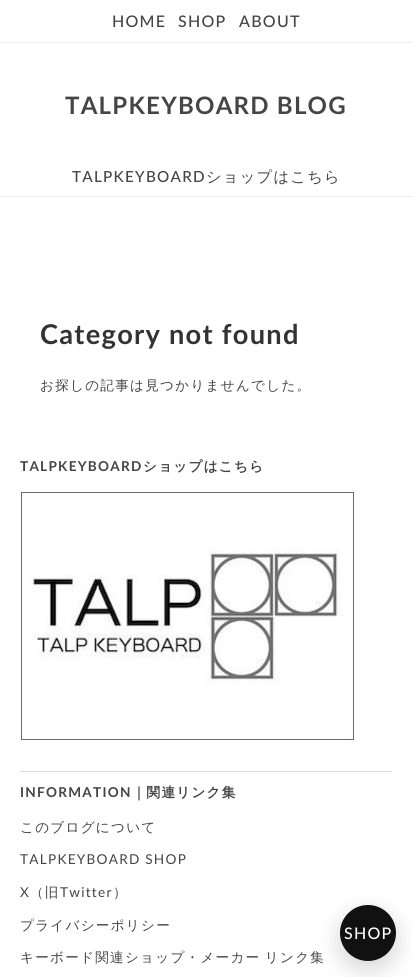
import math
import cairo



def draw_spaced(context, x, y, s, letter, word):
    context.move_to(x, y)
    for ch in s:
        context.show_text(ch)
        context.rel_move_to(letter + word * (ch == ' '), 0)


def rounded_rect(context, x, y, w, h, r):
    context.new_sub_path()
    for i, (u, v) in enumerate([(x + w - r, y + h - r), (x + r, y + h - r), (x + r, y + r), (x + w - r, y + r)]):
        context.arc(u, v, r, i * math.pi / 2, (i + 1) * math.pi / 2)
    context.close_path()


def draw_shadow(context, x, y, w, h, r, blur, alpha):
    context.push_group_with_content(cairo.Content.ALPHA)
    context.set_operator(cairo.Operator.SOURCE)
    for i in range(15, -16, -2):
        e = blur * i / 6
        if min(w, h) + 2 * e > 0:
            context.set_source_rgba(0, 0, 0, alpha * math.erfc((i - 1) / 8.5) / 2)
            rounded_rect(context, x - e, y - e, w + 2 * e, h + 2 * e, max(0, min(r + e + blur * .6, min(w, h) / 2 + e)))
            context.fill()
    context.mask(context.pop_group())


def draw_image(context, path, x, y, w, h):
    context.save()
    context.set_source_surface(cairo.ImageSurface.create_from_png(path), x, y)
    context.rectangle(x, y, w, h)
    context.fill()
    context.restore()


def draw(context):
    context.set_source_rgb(1, 1, 1)
    context.paint()
    context.set_source_rgb(238 / 255, 238 / 255, 238 / 255)
    context.rectangle(0, 42, 412, 1)
    context.fill()
    context.rectangle(0, 196, 412, 1)
    context.fill()
    context.set_source_rgb(0, 0, 0)
    draw_shadow(context, 340, 913, 56, 56, 28, 12, 0.16)
    context.set_source_rgb(17 / 255, 17 / 255, 17 / 255)
    context.arc(368, 933, 28, 0, 2 * math.pi)
    context.fill()
    draw_image(context, "images/1.png", 21, 492, 333, 248)
    context.set_source_rgb(221 / 255, 221 / 255, 221 / 255)
    context.rectangle(20, 771, 372, 1)
    context.fill()
    context.select_font_face("Lato Medium")
    context.set_font_size(16)
    context.set_source_rgb(69 / 255, 69 / 255, 69 / 255)
    draw_spaced(context, 112, 27, "HOME", 1.25, 0)
    draw_spaced(context, 178, 27, "SHOP", 1.25, 0)
    draw_spaced(context, 239, 27, "ABOUT", 1.25, 0)
    context.select_font_face("Lato", cairo.FontSlant.NORMAL, cairo.FontWeight.BOLD)
    context.set_font_size(24)
    draw_spaced(context, 65, 114, "TALPKEYBOARD BLOG", 1.25, 0)
    context.select_font_face("Lato Medium")
    context.set_font_size(15.25)
    draw_spaced(context, 72, 182, "TALPKEYBOARD", 1.25, 0)
    context.select_font_face("WenQuanYi Zen Hei Medium")
    draw_spaced(context, 206, 182, "ショップはこちら", 1.25, 0)
    context.select_font_face("Lato Medium")
    context.set_font_size(16)
    context.set_source_rgb(1, 1, 1)
    draw_spaced(context, 344, 939, "SHOP", 1.25, 0)
    context.select_font_face("Lato", cairo.FontSlant.NORMAL, cairo.FontWeight.BOLD)
    context.set_font_size(27.25)
    context.set_source_rgb(51 / 255, 51 / 255, 51 / 255)
    draw_spaced(context, 40, 344, "Category not found", 1.25, 0)
    context.select_font_face("WenQuanYi Zen Hei Medium")
    context.set_font_size(13.6)
    context.set_source_rgb(69 / 255, 69 / 255, 69 / 255)
    draw_spaced(context, 40, 390, "お探しの記事は見つかりませんでした。", 1.25, 0)
    context.select_font_face("Lato", cairo.FontSlant.NORMAL, cairo.FontWeight.BOLD)
    draw_spaced(context, 20, 471, "TALPKEYBOARD", 1.25, 0)
    context.select_font_face("WenQuanYi Zen Hei", cairo.FontSlant.NORMAL, cairo.FontWeight.BOLD)
    draw_spaced(context, 143, 471, "ショップはこちら", 1.25, 0)
    context.select_font_face("Lato", cairo.FontSlant.NORMAL, cairo.FontWeight.BOLD)
    draw_spaced(context, 20, 797, "INFORMATION", 1.25, 0)
    context.select_font_face("WenQuanYi Zen Hei", cairo.FontSlant.NORMAL, cairo.FontWeight.BOLD)
    draw_spaced(context, 132, 797, "｜関連リンク集", 1.25, 0)
    context.select_font_face("WenQuanYi Zen Hei Medium")
    draw_spaced(context, 20, 832, "このブログについて", 1.25, 0)
    context.select_font_face("Lato")
    draw_spaced(context, 20, 864, "TALPKEYBOARD SHOP", 1.25, 0)
    draw_spaced(context, 20, 897, "X", 1.25, 0)
    context.select_font_face("WenQuanYi Zen Hei Medium")
    draw_spaced(context, 30, 897, "（旧", 1.25, 0)
    context.select_font_face("Lato")
    draw_spaced(context, 60, 897, "Twitter", 1.25, 0)
    context.select_font_face("WenQuanYi Zen Hei Medium")
    draw_spaced(context, 113, 897, "）", 1.25, 0)
    draw_spaced(context, 20, 930, "プライバシーポリシー", 1.25, 0)
    draw_spaced(context, 20, 962, "キーボード関連ショップ・メーカー リンク集", 1.25, -1)


surface = cairo.ImageSurface(cairo.Format.RGB24, 412, 977)
context = cairo.Context(surface)
options = cairo.FontOptions()
options.set_hint_metrics(cairo.HintMetrics.OFF)
options.set_hint_style(cairo.HintStyle.NONE)
context.set_font_options(options)
context.set_miter_limit(4)
draw(context)
surface.write_to_png("out.png")
